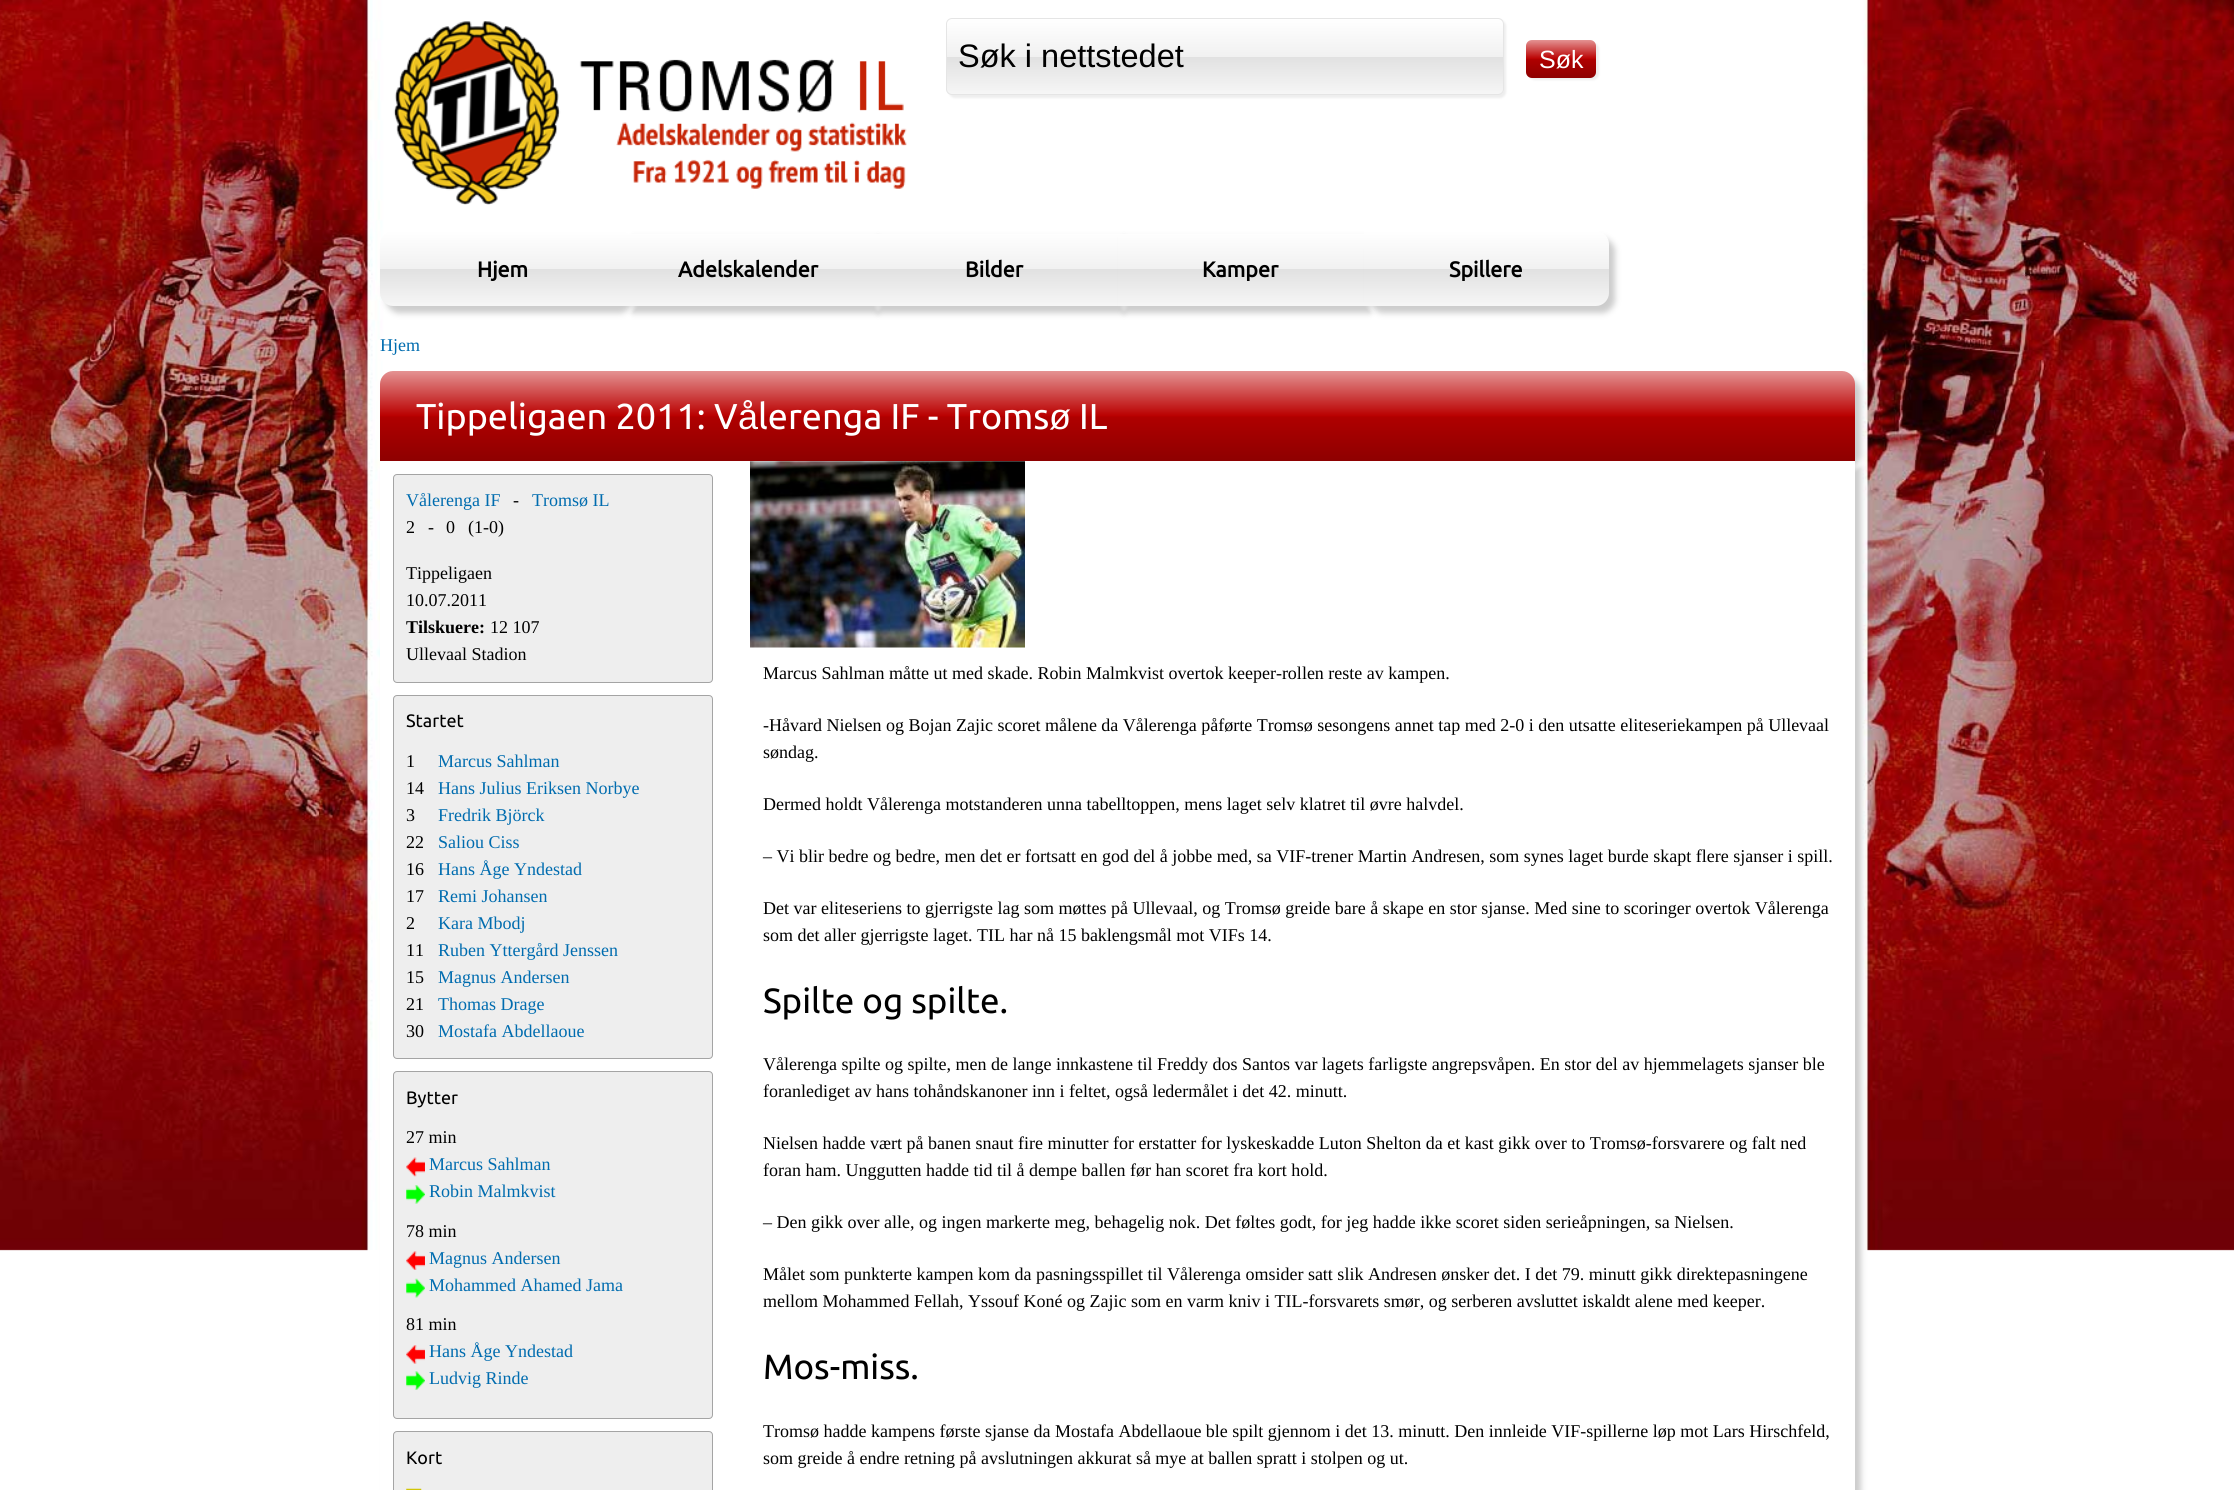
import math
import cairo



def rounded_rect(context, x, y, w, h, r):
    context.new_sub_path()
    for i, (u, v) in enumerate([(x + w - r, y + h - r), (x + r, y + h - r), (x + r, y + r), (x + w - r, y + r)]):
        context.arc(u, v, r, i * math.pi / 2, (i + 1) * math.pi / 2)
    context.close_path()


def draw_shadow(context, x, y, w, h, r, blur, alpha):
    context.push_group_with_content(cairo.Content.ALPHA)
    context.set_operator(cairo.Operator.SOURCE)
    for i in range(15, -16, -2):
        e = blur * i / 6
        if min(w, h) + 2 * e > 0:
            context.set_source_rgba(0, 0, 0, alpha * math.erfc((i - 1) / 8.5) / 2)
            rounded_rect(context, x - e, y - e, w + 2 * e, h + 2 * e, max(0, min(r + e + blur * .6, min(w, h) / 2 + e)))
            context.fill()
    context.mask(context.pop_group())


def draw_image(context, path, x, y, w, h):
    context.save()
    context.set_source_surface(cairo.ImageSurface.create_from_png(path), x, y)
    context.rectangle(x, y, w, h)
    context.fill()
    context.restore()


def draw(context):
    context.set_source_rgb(1, 1, 1)
    context.paint()
    draw_image(context, "images/1.png", 0, 0, 2234, 1251)
    draw_image(context, "images/2.png", 393, 21, 514, 184)
    context.set_source_rgb(238 / 255, 238 / 255, 238 / 255)
    draw_shadow(context, 949, 20, 557, 78, 6, 1, 1)
    context.save()
    rounded_rect(context, 946, 18, 558, 77, 6)
    context.clip()
    gradient = cairo.LinearGradient(1225, 19, 1225, 94)
    gradient.add_color_stop_rgba(0, 1, 1, 1, 1)
    gradient.add_color_stop_rgba(0.5, 241 / 255, 241 / 255, 241 / 255, 1)
    gradient.add_color_stop_rgba(0.51, 225 / 255, 225 / 255, 225 / 255, 1)
    gradient.add_color_stop_rgba(1, 246 / 255, 246 / 255, 246 / 255, 1)
    context.set_source(gradient)
    context.rectangle(946, 19, 558, 75)
    context.fill()
    context.restore()
    rounded_rect(context, 946.5, 18.5, 557, 76, 5.5)
    context.set_source_rgb(229 / 255, 229 / 255, 229 / 255)
    context.set_line_width(1)
    context.stroke()
    context.set_source_rgb(238 / 255, 238 / 255, 238 / 255)
    draw_shadow(context, 1529, 43, 70, 37, 6, 1, 1)
    gradient = cairo.LinearGradient(1561, 40, 1561, 78)
    gradient.add_color_stop_rgba(0, 228 / 255, 147 / 255, 147 / 255, 1)
    gradient.add_color_stop_rgba(0.5, 186 / 255, 0, 0, 1)
    gradient.add_color_stop_rgba(0.51, 175 / 255, 0, 0, 1)
    gradient.add_color_stop_rgba(1, 142 / 255, 0, 0, 1)
    context.set_source(gradient)
    rounded_rect(context, 1526, 40, 70, 38, 6)
    context.fill()
    context.set_source_rgb(204 / 255, 204 / 255, 204 / 255)
    draw_shadow(context, 386, 238, 247, 75, 13, 3, 1)
    gradient = cairo.LinearGradient(503, 231, 503, 306)
    gradient.add_color_stop_rgba(0, 1, 1, 1, 1)
    gradient.add_color_stop_rgba(0.5, 241 / 255, 241 / 255, 241 / 255, 1)
    gradient.add_color_stop_rgba(0.51, 225 / 255, 225 / 255, 225 / 255, 1)
    gradient.add_color_stop_rgba(1, 246 / 255, 246 / 255, 246 / 255, 1)
    context.set_source(gradient)
    context.new_path()
    context.move_to(393, 231)
    context.line_to(626, 231)
    context.line_to(626, 306)
    context.line_to(393, 306)
    context.curve_to(386, 306, 380, 300, 380, 293)
    context.line_to(380, 244)
    context.curve_to(380, 237, 386, 231, 393, 231)
    context.close_path()
    context.fill()
    context.set_source_rgb(204 / 255, 204 / 255, 204 / 255)
    draw_shadow(context, 633, 238, 245, 75, 0, 3, 1)
    gradient = cairo.LinearGradient(749, 231, 749, 306)
    gradient.add_color_stop_rgba(0, 1, 1, 1, 1)
    gradient.add_color_stop_rgba(0.5, 241 / 255, 241 / 255, 241 / 255, 1)
    gradient.add_color_stop_rgba(0.51, 225 / 255, 225 / 255, 225 / 255, 1)
    gradient.add_color_stop_rgba(1, 246 / 255, 246 / 255, 246 / 255, 1)
    context.set_source(gradient)
    context.rectangle(626, 234, 245, 72)
    context.fill()
    context.set_source_rgb(204 / 255, 204 / 255, 204 / 255)
    draw_shadow(context, 878, 238, 246, 75, 0, 3, 1)
    gradient = cairo.LinearGradient(994, 231, 994, 306)
    gradient.add_color_stop_rgba(0, 1, 1, 1, 1)
    gradient.add_color_stop_rgba(0.5, 241 / 255, 241 / 255, 241 / 255, 1)
    gradient.add_color_stop_rgba(0.51, 225 / 255, 225 / 255, 225 / 255, 1)
    gradient.add_color_stop_rgba(1, 246 / 255, 246 / 255, 246 / 255, 1)
    context.set_source(gradient)
    context.rectangle(871, 234, 247, 72)
    context.fill()
    context.set_source_rgb(204 / 255, 204 / 255, 204 / 255)
    draw_shadow(context, 1124, 238, 246, 75, 0, 3, 1)
    gradient = cairo.LinearGradient(1241, 231, 1241, 306)
    gradient.add_color_stop_rgba(0, 1, 1, 1, 1)
    gradient.add_color_stop_rgba(0.5, 241 / 255, 241 / 255, 241 / 255, 1)
    gradient.add_color_stop_rgba(0.51, 225 / 255, 225 / 255, 225 / 255, 1)
    gradient.add_color_stop_rgba(1, 246 / 255, 246 / 255, 246 / 255, 1)
    context.set_source(gradient)
    context.rectangle(1118, 234, 246, 72)
    context.fill()
    context.set_source_rgb(204 / 255, 204 / 255, 204 / 255)
    draw_shadow(context, 1370, 238, 245, 75, 13, 3, 1)
    gradient = cairo.LinearGradient(1486, 231, 1486, 306)
    gradient.add_color_stop_rgba(0, 1, 1, 1, 1)
    gradient.add_color_stop_rgba(0.5, 241 / 255, 241 / 255, 241 / 255, 1)
    gradient.add_color_stop_rgba(0.51, 225 / 255, 225 / 255, 225 / 255, 1)
    gradient.add_color_stop_rgba(1, 246 / 255, 246 / 255, 246 / 255, 1)
    context.set_source(gradient)
    context.new_path()
    context.move_to(1364, 231)
    context.line_to(1596, 231)
    context.curve_to(1603, 231, 1609, 237, 1609, 244)
    context.line_to(1609, 293)
    context.curve_to(1609, 300, 1603, 306, 1596, 306)
    context.line_to(1364, 306)
    context.close_path()
    context.fill()
    context.set_source_rgb(204 / 255, 204 / 255, 204 / 255)
    draw_shadow(context, 386, 378, 1475, 90, 13, 3, 1)
    gradient = cairo.LinearGradient(1118, 371, 1118, 461)
    gradient.add_color_stop_rgba(0, 228 / 255, 147 / 255, 147 / 255, 1)
    gradient.add_color_stop_rgba(0.5, 186 / 255, 0, 0, 1)
    gradient.add_color_stop_rgba(0.51, 175 / 255, 0, 0, 1)
    gradient.add_color_stop_rgba(1, 142 / 255, 0, 0, 1)
    context.set_source(gradient)
    context.new_path()
    context.move_to(393, 371)
    context.line_to(1842, 371)
    context.curve_to(1849, 371, 1855, 377, 1855, 384)
    context.line_to(1855, 461)
    context.line_to(380, 461)
    context.line_to(380, 384)
    context.curve_to(380, 377, 386, 371, 393, 371)
    context.close_path()
    context.fill()
    context.set_source_rgb(204 / 255, 204 / 255, 204 / 255)
    draw_shadow(context, 386, 468, 1475, 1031, 0, 3, 1)
    context.set_source_rgb(1, 1, 1)
    context.rectangle(380, 461, 1475, 1029)
    context.fill()
    context.set_source_rgb(238 / 255, 238 / 255, 238 / 255)
    rounded_rect(context, 393.5, 474.5, 319, 208, 3.5)
    context.fill_preserve()
    context.set_source_rgb(164 / 255, 164 / 255, 164 / 255)
    context.stroke()
    context.set_source_rgb(238 / 255, 238 / 255, 238 / 255)
    rounded_rect(context, 393.5, 695.5, 319, 363, 3.5)
    context.fill_preserve()
    context.set_source_rgb(164 / 255, 164 / 255, 164 / 255)
    context.stroke()
    context.set_source_rgb(238 / 255, 238 / 255, 238 / 255)
    rounded_rect(context, 393.5, 1071.5, 319, 347, 3.5)
    context.fill_preserve()
    context.set_source_rgb(164 / 255, 164 / 255, 164 / 255)
    context.stroke()
    draw_image(context, "images/3.png", 406, 1157, 19, 20)
    draw_image(context, "images/4.png", 406, 1185, 19, 19)
    draw_image(context, "images/5.png", 406, 1251, 19, 19)
    draw_image(context, "images/6.png", 406, 1278, 19, 20)
    draw_image(context, "images/7.png", 406, 1345, 19, 19)
    draw_image(context, "images/8.png", 406, 1371, 19, 19)
    context.set_source_rgb(238 / 255, 238 / 255, 238 / 255)
    rounded_rect(context, 393.5, 1431.5, 319, 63, 3.5)
    context.fill_preserve()
    context.set_source_rgb(164 / 255, 164 / 255, 164 / 255)
    context.stroke()
    draw_image(context, "images/9.png", 406, 1488, 16, 2)
    draw_image(context, "images/10.png", 750, 461, 275, 187)
    context.select_font_face("Liberation Sans")
    context.set_font_size(32.5)
    context.set_source_rgb(0, 0, 0)
    context.move_to(958, 67)
    context.show_text("Søk i nettstedet")
    context.set_font_size(25)
    context.set_source_rgb(1, 1, 1)
    context.move_to(1539, 68)
    context.show_text("Søk")
    context.select_font_face("Ubuntu", cairo.FontSlant.NORMAL, cairo.FontWeight.BOLD)
    context.set_font_size(21.5)
    context.set_source_rgb(0, 0, 0)
    context.move_to(477, 277)
    context.show_text("Hjem")
    context.move_to(678, 277)
    context.show_text("Adelskalender")
    context.move_to(965, 277)
    context.show_text("Bilder")
    context.move_to(1202, 277)
    context.show_text("Kamper")
    context.move_to(1449, 277)
    context.show_text("Spillere")
    context.select_font_face("Liberation Serif")
    context.set_font_size(18)
    context.set_source_rgb(0, 108 / 255, 175 / 255)
    context.move_to(380, 351)
    context.show_text("Hjem")
    context.select_font_face("Ubuntu")
    context.set_font_size(36)
    context.set_source_rgb(1, 1, 1)
    context.move_to(416, 429)
    context.show_text("Tippeligaen 2011: V")
    context.select_font_face("Liberation Sans")
    context.move_to(738, 429)
    context.show_text("å")
    context.select_font_face("Ubuntu")
    context.move_to(758, 429)
    context.show_text("lerenga IF - Troms")
    context.select_font_face("Liberation Sans")
    context.move_to(1049, 429)
    context.show_text("ø")
    context.select_font_face("Ubuntu")
    context.move_to(1079, 429)
    context.show_text("IL")
    context.select_font_face("Liberation Serif")
    context.set_font_size(18)
    context.set_source_rgb(0, 108 / 255, 175 / 255)
    context.move_to(406, 506)
    context.show_text("Vålerenga IF")
    context.set_source_rgb(0, 0, 0)
    context.move_to(513, 506)
    context.show_text("-")
    context.set_source_rgb(0, 108 / 255, 175 / 255)
    context.move_to(532, 506)
    context.show_text("Tromsø IL")
    context.set_source_rgb(0, 0, 0)
    context.move_to(406, 533)
    context.show_text("2")
    context.move_to(428, 533)
    context.show_text("-")
    context.move_to(446, 533)
    context.show_text("0")
    context.move_to(468, 533)
    context.show_text("(1-0)")
    context.move_to(406, 579)
    context.show_text("Tippeligaen")
    context.move_to(406, 606)
    context.show_text("10.07.2011")
    context.select_font_face("Liberation Serif", cairo.FontSlant.NORMAL, cairo.FontWeight.BOLD)
    context.move_to(406, 633)
    context.show_text("Tilskuere:")
    context.select_font_face("Liberation Serif")
    context.move_to(490, 633)
    context.show_text("12 107")
    context.move_to(406, 660)
    context.show_text("Ullevaal Stadion")
    context.select_font_face("Ubuntu")
    context.move_to(406, 727)
    context.show_text("Startet")
    context.select_font_face("Liberation Serif")
    context.move_to(406, 767)
    context.show_text("1")
    context.set_source_rgb(0, 108 / 255, 175 / 255)
    context.move_to(438, 767)
    context.show_text("Marcus Sahlman")
    context.set_source_rgb(0, 0, 0)
    context.move_to(406, 794)
    context.show_text("14")
    context.set_source_rgb(0, 108 / 255, 175 / 255)
    context.move_to(438, 794)
    context.show_text("Hans Julius Eriksen Norbye")
    context.set_source_rgb(0, 0, 0)
    context.move_to(406, 821)
    context.show_text("3")
    context.set_source_rgb(0, 108 / 255, 175 / 255)
    context.move_to(438, 821)
    context.show_text("Fredrik Björck")
    context.set_source_rgb(0, 0, 0)
    context.move_to(406, 848)
    context.show_text("22")
    context.set_source_rgb(0, 108 / 255, 175 / 255)
    context.move_to(438, 848)
    context.show_text("Saliou Ciss")
    context.set_source_rgb(0, 0, 0)
    context.move_to(406, 875)
    context.show_text("16")
    context.set_source_rgb(0, 108 / 255, 175 / 255)
    context.move_to(438, 875)
    context.show_text("Hans Åge Yndestad")
    context.set_source_rgb(0, 0, 0)
    context.move_to(406, 902)
    context.show_text("17")
    context.set_source_rgb(0, 108 / 255, 175 / 255)
    context.move_to(438, 902)
    context.show_text("Remi Johansen")
    context.set_source_rgb(0, 0, 0)
    context.move_to(406, 929)
    context.show_text("2")
    context.set_source_rgb(0, 108 / 255, 175 / 255)
    context.move_to(438, 929)
    context.show_text("Kara Mbodj")
    context.set_source_rgb(0, 0, 0)
    context.move_to(406, 956)
    context.show_text("11")
    context.set_source_rgb(0, 108 / 255, 175 / 255)
    context.move_to(438, 956)
    context.show_text("Ruben Yttergård Jenssen")
    context.set_source_rgb(0, 0, 0)
    context.move_to(406, 983)
    context.show_text("15")
    context.set_source_rgb(0, 108 / 255, 175 / 255)
    context.move_to(438, 983)
    context.show_text("Magnus Andersen")
    context.set_source_rgb(0, 0, 0)
    context.move_to(406, 1010)
    context.show_text("21")
    context.set_source_rgb(0, 108 / 255, 175 / 255)
    context.move_to(438, 1010)
    context.show_text("Thomas Drage")
    context.set_source_rgb(0, 0, 0)
    context.move_to(406, 1037)
    context.show_text("30")
    context.set_source_rgb(0, 108 / 255, 175 / 255)
    context.move_to(438, 1037)
    context.show_text("Mostafa Abdellaoue")
    context.select_font_face("Ubuntu")
    context.set_source_rgb(0, 0, 0)
    context.move_to(406, 1104)
    context.show_text("Bytter")
    context.select_font_face("Liberation Serif")
    context.move_to(406, 1143)
    context.show_text("27 min")
    context.set_source_rgb(0, 108 / 255, 175 / 255)
    context.move_to(429, 1170)
    context.show_text("Marcus Sahlman")
    context.move_to(429, 1197)
    context.show_text("Robin Malmkvist")
    context.set_source_rgb(0, 0, 0)
    context.move_to(406, 1237)
    context.show_text("78 min")
    context.set_source_rgb(0, 108 / 255, 175 / 255)
    context.move_to(429, 1264)
    context.show_text("Magnus Andersen")
    context.move_to(429, 1291)
    context.show_text("Mohammed Ahamed Jama")
    context.set_source_rgb(0, 0, 0)
    context.move_to(406, 1330)
    context.show_text("81 min")
    context.set_source_rgb(0, 108 / 255, 175 / 255)
    context.move_to(429, 1357)
    context.show_text("Hans Åge Yndestad")
    context.move_to(429, 1384)
    context.show_text("Ludvig Rinde")
    context.select_font_face("Ubuntu")
    context.set_source_rgb(0, 0, 0)
    context.move_to(406, 1464)
    context.show_text("Kort")
    context.select_font_face("Liberation Serif")
    context.move_to(763, 679)
    context.show_text("Marcus Sahlman måtte ut med skade. Robin Malmkvist overtok keeper-rollen reste av kampen.")
    context.move_to(763, 731)
    context.show_text("-Håvard Nielsen og Bojan Zajic scoret målene da Vålerenga påførte Tromsø sesongens annet tap med 2-0 i den utsatte eliteseriekampen på Ullevaal")
    context.move_to(763, 758)
    context.show_text("søndag.")
    context.move_to(763, 810)
    context.show_text("Dermed holdt Vålerenga motstanderen unna tabelltoppen, mens laget selv klatret til øvre halvdel.")
    context.move_to(763, 862)
    context.show_text("– Vi blir bedre og bedre, men det er fortsatt en god del å jobbe med, sa VIF-trener Martin Andresen, som synes laget burde skapt flere sjanser i spill.")
    context.move_to(763, 914)
    context.show_text("Det var eliteseriens to gjerrigste lag som møttes på Ullevaal, og Tromsø greide bare å skape en stor sjanse. Med sine to scoringer overtok Vålerenga")
    context.move_to(763, 941)
    context.show_text("som det aller gjerrigste laget. TIL har nå 15 baklengsmål mot VIFs 14.")
    context.select_font_face("Ubuntu")
    context.set_font_size(35)
    context.move_to(763, 1013)
    context.show_text("Spilte og spilte.")
    context.select_font_face("Liberation Serif")
    context.set_font_size(18)
    context.move_to(763, 1070)
    context.show_text("Vålerenga spilte og spilte, men de lange innkastene til Freddy dos Santos var lagets farligste angrepsvåpen. En stor del av hjemmelagets sjanser ble")
    context.move_to(763, 1097)
    context.show_text("foranlediget av hans tohåndskanoner inn i feltet, også ledermålet i det 42. minutt.")
    context.move_to(763, 1149)
    context.show_text("Nielsen hadde vært på banen snaut fire minutter for erstatter for lyskeskadde Luton Shelton da et kast gikk over to Tromsø-forsvarere og falt ned")
    context.move_to(763, 1176)
    context.show_text("foran ham. Unggutten hadde tid til å dempe ballen før han scoret fra kort hold.")
    context.move_to(763, 1228)
    context.show_text("– Den gikk over alle, og ingen markerte meg, behagelig nok. Det føltes godt, for jeg hadde ikke scoret siden serieåpningen, sa Nielsen.")
    context.move_to(763, 1280)
    context.show_text("Målet som punkterte kampen kom da pasningsspillet til Vålerenga omsider satt slik Andresen ønsker det. I det 79. minutt gikk direktepasningene")
    context.move_to(763, 1307)
    context.show_text("mellom Mohammed Fellah, Yssouf Koné og Zajic som en varm kniv i TIL-forsvarets smør, og serberen avsluttet iskaldt alene med keeper.")
    context.select_font_face("Ubuntu")
    context.set_font_size(35)
    context.move_to(763, 1379)
    context.show_text("Mos-miss.")
    context.select_font_face("Liberation Serif")
    context.set_font_size(18)
    context.move_to(763, 1437)
    context.show_text("Tromsø hadde kampens første sjanse da Mostafa Abdellaoue ble spilt gjennom i det 13. minutt. Den innleide VIF-spillerne løp mot Lars Hirschfeld,")
    context.move_to(763, 1464)
    context.show_text("som greide å endre retning på avslutningen akkurat så mye at ballen spratt i stolpen og ut.")


surface = cairo.ImageSurface(cairo.Format.RGB24, 2234, 1490)
context = cairo.Context(surface)
options = cairo.FontOptions()
options.set_hint_metrics(cairo.HintMetrics.OFF)
options.set_hint_style(cairo.HintStyle.NONE)
context.set_font_options(options)
context.set_miter_limit(4)
draw(context)
surface.write_to_png("out.png")
